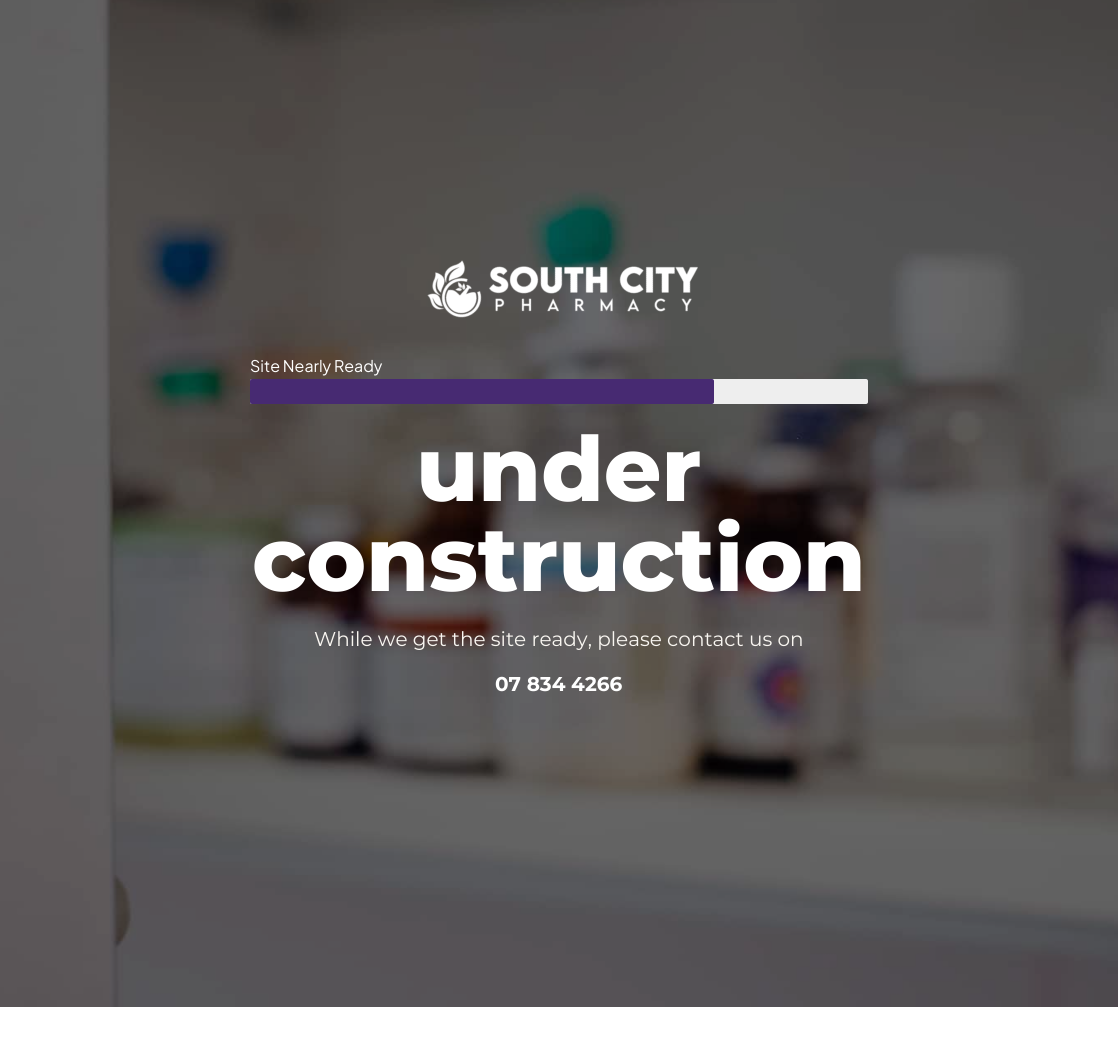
import math
import cairo



def rounded_rect(context, x, y, w, h, r):
    context.new_sub_path()
    for i, (u, v) in enumerate([(x + w - r, y + h - r), (x + r, y + h - r), (x + r, y + r), (x + w - r, y + r)]):
        context.arc(u, v, r, i * math.pi / 2, (i + 1) * math.pi / 2)
    context.close_path()


def draw_image(context, path, x, y, w, h):
    context.save()
    context.set_source_surface(cairo.ImageSurface.create_from_png(path), x, y)
    context.rectangle(x, y, w, h)
    context.fill()
    context.restore()


def draw(context):
    context.set_source_rgb(1, 1, 1)
    context.paint()
    draw_image(context, "images/1.png", 0, 0, 1118, 1007)
    draw_image(context, "images/2.png", 427, 260, 271, 58)
    context.set_source_rgb(238 / 255, 238 / 255, 238 / 255)
    rounded_rect(context, 250, 379, 618, 25, 2)
    context.fill()
    context.set_source_rgb(71 / 255, 42 / 255, 114 / 255)
    rounded_rect(context, 250, 379, 464, 25, 2)
    context.fill()
    context.select_font_face("Plus Jakarta Sans")
    context.set_font_size(16)
    context.set_source_rgb(1, 1, 1)
    context.move_to(250, 372)
    context.show_text("Site Nearly Ready")
    context.select_font_face("Montserrat ExtraBold")
    context.set_font_size(90)
    context.move_to(416, 501)
    context.show_text("under")
    context.move_to(252, 591)
    context.show_text("construction")
    context.select_font_face("Montserrat")
    context.set_font_size(20)
    context.set_source_rgb(249 / 255, 246 / 255, 241 / 255)
    context.move_to(314, 646)
    context.show_text("While we get the site ready, please contact us on")
    context.select_font_face("Montserrat", cairo.FontSlant.NORMAL, cairo.FontWeight.BOLD)
    context.set_source_rgb(1, 1, 1)
    context.move_to(495, 691)
    context.show_text("07 834 4266")


surface = cairo.ImageSurface(cairo.Format.RGB24, 1118, 1057)
context = cairo.Context(surface)
options = cairo.FontOptions()
options.set_hint_metrics(cairo.HintMetrics.OFF)
options.set_hint_style(cairo.HintStyle.NONE)
context.set_font_options(options)
context.set_miter_limit(4)
draw(context)
surface.write_to_png("out.png")
